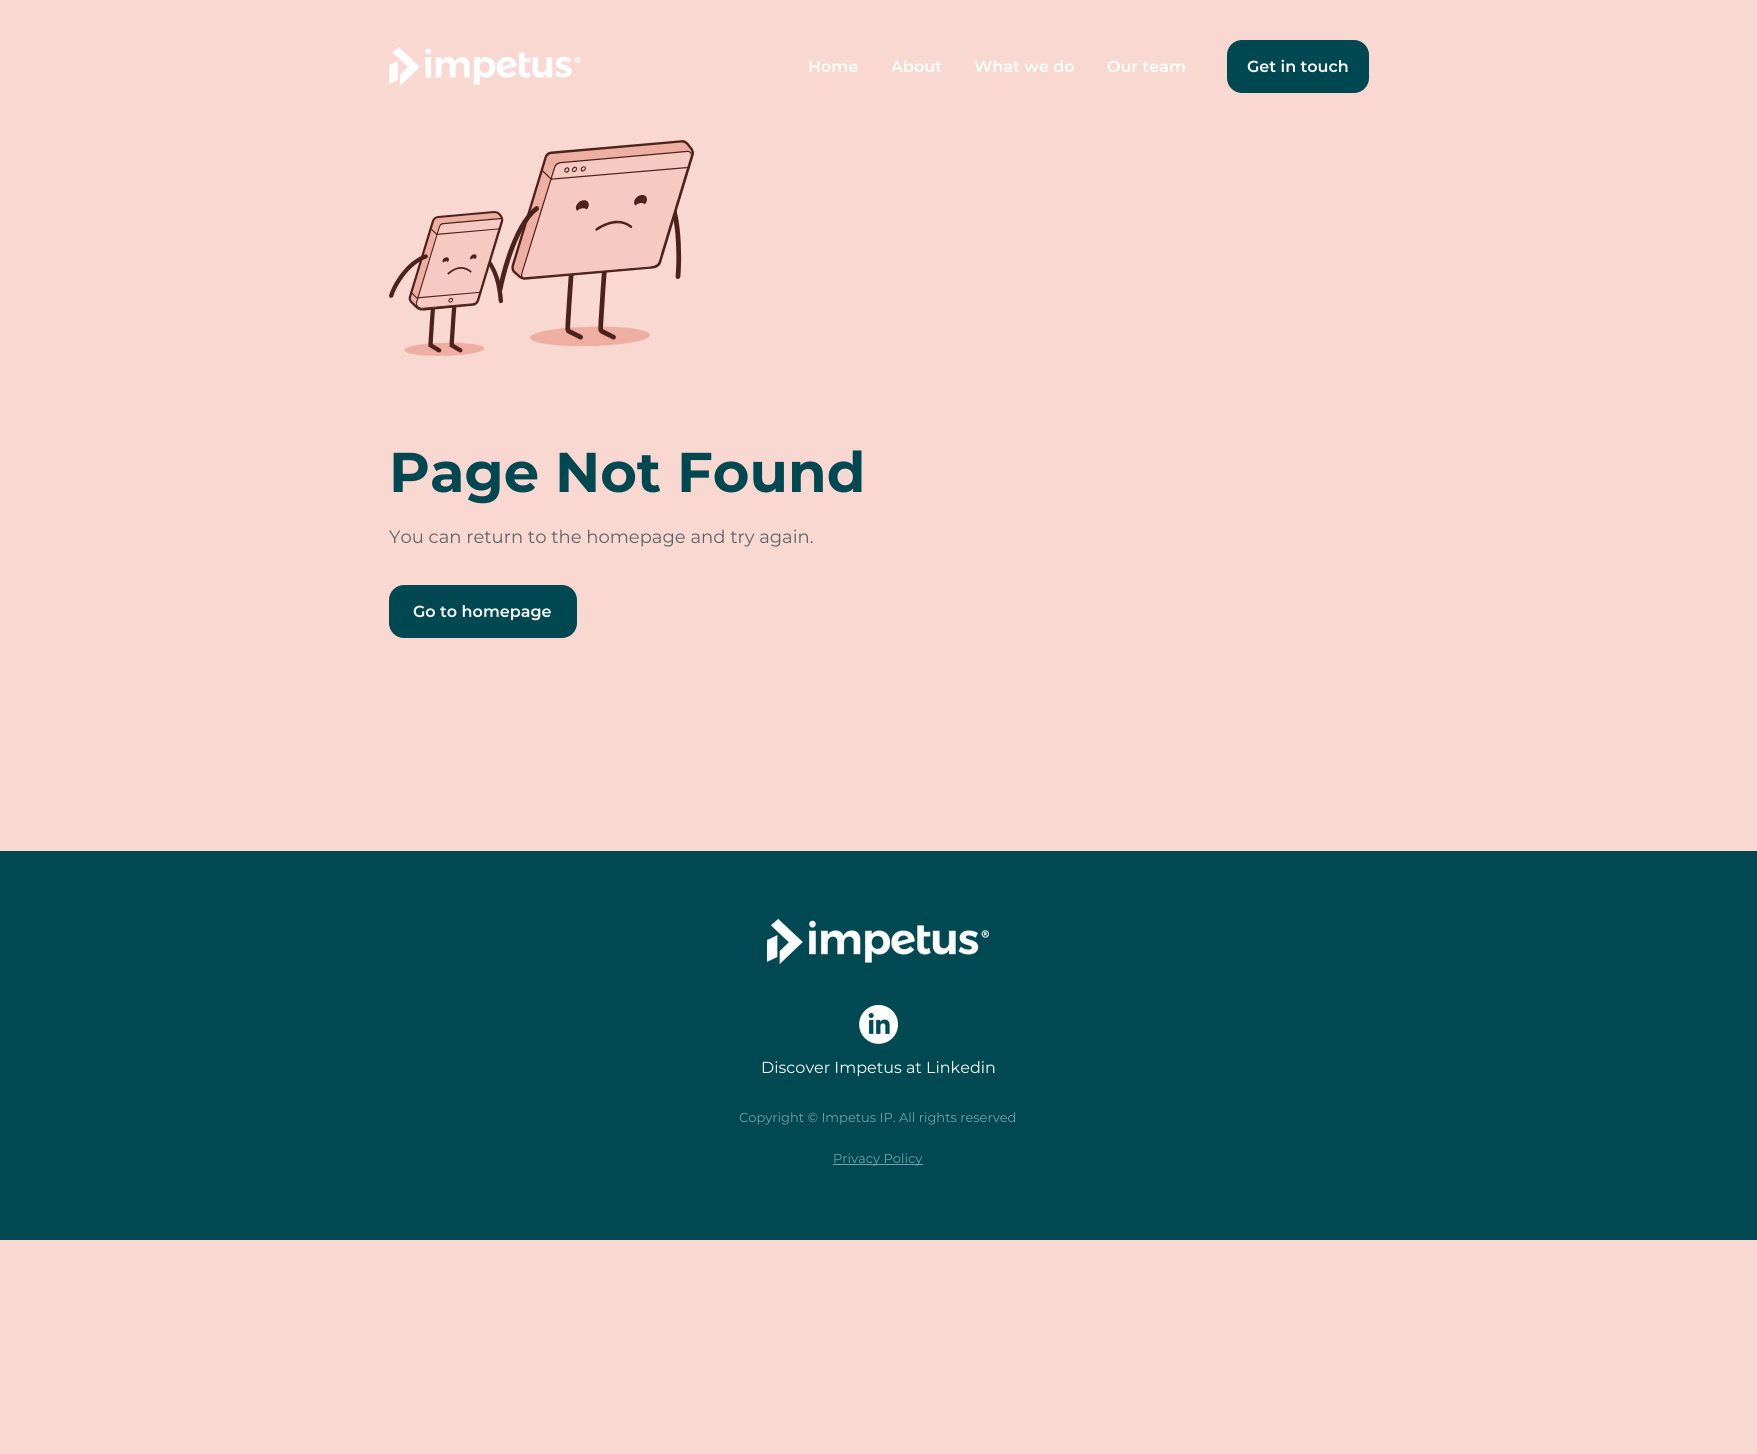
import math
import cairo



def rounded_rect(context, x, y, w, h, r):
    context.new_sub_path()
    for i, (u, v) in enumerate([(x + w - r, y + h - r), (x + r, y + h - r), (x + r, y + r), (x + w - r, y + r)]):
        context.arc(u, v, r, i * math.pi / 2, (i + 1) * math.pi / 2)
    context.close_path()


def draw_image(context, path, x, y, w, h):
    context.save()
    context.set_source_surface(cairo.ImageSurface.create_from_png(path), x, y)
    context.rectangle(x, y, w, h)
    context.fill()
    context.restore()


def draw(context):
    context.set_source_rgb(249 / 255, 216 / 255, 210 / 255)
    context.paint()
    draw_image(context, "images/1.png", 389, 47, 192, 39)
    context.set_source_rgb(0, 72 / 255, 81 / 255)
    rounded_rect(context, 1227, 40, 142, 53, 15)
    context.fill()
    draw_image(context, "images/2.png", 389, 140, 305, 216)
    rounded_rect(context, 389, 585, 188, 53, 15)
    context.fill()
    context.set_source_rgb(0, 72 / 255, 82 / 255)
    context.rectangle(0, 851, 1757, 389)
    context.fill()
    draw_image(context, "images/3.png", 767, 919, 222, 45)
    draw_image(context, "images/4.png", 859, 1005, 39, 39)
    context.set_source_rgb(113 / 255, 160 / 255, 168 / 255)
    context.rectangle(833, 1164, 90, 1)
    context.fill()
    context.select_font_face("Montserrat SemiBold")
    context.set_font_size(16)
    context.set_source_rgb(1, 1, 1)
    context.move_to(808, 72)
    context.show_text("Home")
    context.move_to(891, 72)
    context.show_text("About")
    context.move_to(974, 72)
    context.show_text("What we do")
    context.move_to(1107, 72)
    context.show_text("Our team")
    context.move_to(1247, 72)
    context.show_text("Get in touch")
    context.select_font_face("Montserrat", cairo.FontSlant.NORMAL, cairo.FontWeight.BOLD)
    context.set_font_size(56)
    context.set_source_rgb(0, 72 / 255, 81 / 255)
    context.move_to(389, 492)
    context.show_text("Page Not Found")
    context.select_font_face("Montserrat")
    context.set_font_size(18)
    context.set_source_rgb(96 / 255, 98 / 255, 102 / 255)
    context.move_to(389, 543)
    context.show_text("You can return to the homepage and try again.")
    context.select_font_face("Montserrat SemiBold")
    context.set_font_size(16)
    context.set_source_rgb(1, 1, 1)
    context.move_to(413, 617)
    context.show_text("Go to homepage")
    context.select_font_face("Montserrat")
    context.move_to(761, 1073)
    context.show_text("Discover Impetus at Linkedin")
    context.set_font_size(13)
    context.set_source_rgb(113 / 255, 160 / 255, 168 / 255)
    context.move_to(739, 1122)
    context.show_text("Copyright © Impetus IP. All rights reserved")
    context.move_to(833, 1163)
    context.show_text("Privacy Policy")


surface = cairo.ImageSurface(cairo.Format.RGB24, 1757, 1454)
context = cairo.Context(surface)
options = cairo.FontOptions()
options.set_hint_metrics(cairo.HintMetrics.OFF)
options.set_hint_style(cairo.HintStyle.NONE)
context.set_font_options(options)
context.set_miter_limit(4)
draw(context)
surface.write_to_png("out.png")
